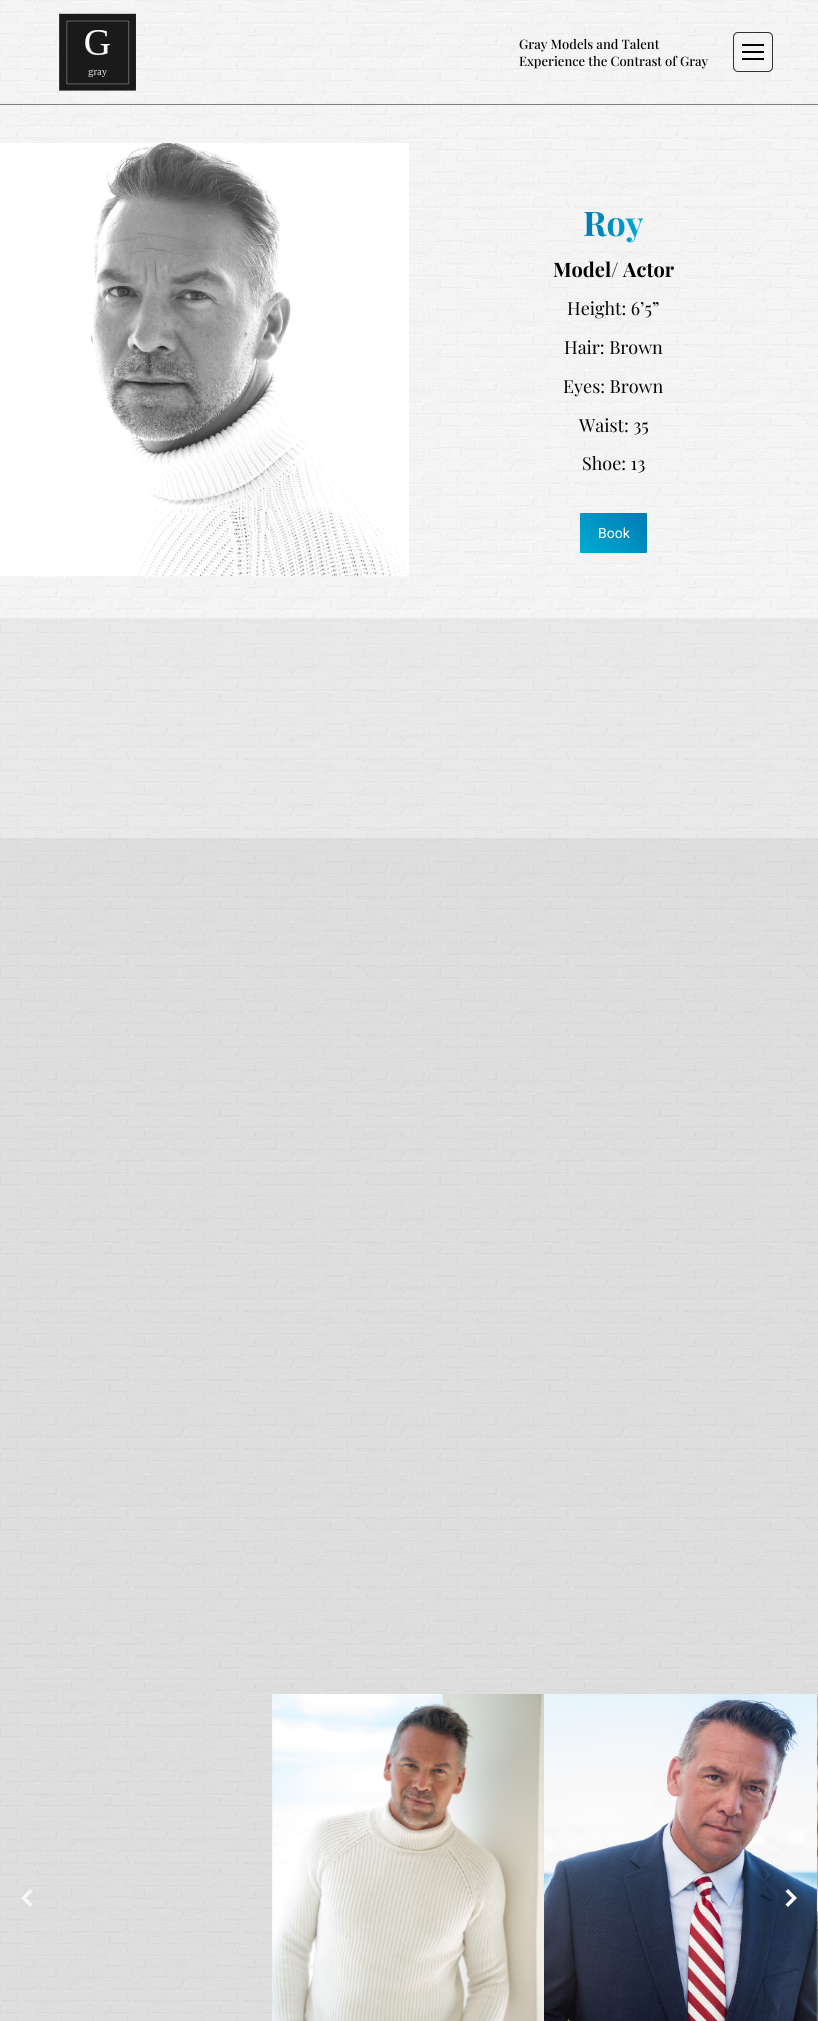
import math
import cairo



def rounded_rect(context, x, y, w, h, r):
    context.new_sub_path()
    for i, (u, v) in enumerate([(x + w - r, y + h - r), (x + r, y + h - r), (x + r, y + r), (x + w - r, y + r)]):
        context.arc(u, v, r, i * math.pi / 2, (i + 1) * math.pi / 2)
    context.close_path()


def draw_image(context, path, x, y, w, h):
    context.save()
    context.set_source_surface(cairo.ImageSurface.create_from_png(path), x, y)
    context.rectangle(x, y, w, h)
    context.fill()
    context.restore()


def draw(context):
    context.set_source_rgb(1, 1, 1)
    context.paint()
    draw_image(context, "images/1.png", 0, 0, 818, 2021)
    context.set_source_rgb(127 / 255, 127 / 255, 127 / 255)
    context.rectangle(0, 104, 818, 1)
    context.fill()
    draw_image(context, "images/2.png", 59, 13, 77, 78)
    rounded_rect(context, 733.5, 32.5, 39, 39, 4.5)
    context.set_source_rgb(48 / 255, 48 / 255, 48 / 255)
    context.set_line_width(1)
    context.stroke()
    context.set_source_rgb(0, 0, 0)
    context.rectangle(742, 44, 22, 2)
    context.fill()
    context.rectangle(742, 51, 22, 2)
    context.fill()
    context.rectangle(742, 58, 22, 2)
    context.fill()
    draw_image(context, "images/3.png", 0, 143, 409, 433)
    gradient = cairo.LinearGradient(637, 505, 590, 561)
    gradient.add_color_stop_rgba(0, 0, 121 / 255, 178 / 255, 1)
    gradient.add_color_stop_rgba(1, 0, 172 / 255, 211 / 255, 1)
    context.set_source(gradient)
    rounded_rect(context, 580, 513, 67, 40, 1)
    context.fill()
    context.set_source_rgba(2 / 255, 2 / 255, 2 / 255, 0.05)
    context.rectangle(0, 618, 818, 1403)
    context.fill()
    context.rectangle(0, 838, 818, 1183)
    context.fill()
    draw_image(context, "images/4.png", 272, 1694, 272, 327)
    draw_image(context, "images/5.png", 544, 1694, 273, 327)
    draw_image(context, "images/6.png", 817, 1694, 1, 327)
    context.set_source_rgb(247 / 255, 247 / 255, 247 / 255)
    context.new_path()
    context.move_to(32.5, 1904.5)
    context.line_to(26, 1898)
    context.line_to(32.5, 1891.5)
    context.line_to(30, 1889)
    context.line_to(21, 1898)
    context.line_to(30, 1907)
    context.close_path()
    context.fill()
    context.new_path()
    context.move_to(788, 1907)
    context.line_to(797, 1898)
    context.line_to(788, 1889)
    context.line_to(785.5, 1891.5)
    context.line_to(792, 1898)
    context.line_to(785.5, 1904.5)
    context.close_path()
    context.fill()
    context.select_font_face("Playfair Display Medium")
    context.set_font_size(13)
    context.set_source_rgb(2 / 255, 2 / 255, 2 / 255)
    context.move_to(519, 49)
    context.show_text("Gray Models and Talent")
    context.move_to(519, 66)
    context.show_text("Experience the Contrast of Gray")
    context.select_font_face("Playfair Display", cairo.FontSlant.NORMAL, cairo.FontWeight.BOLD)
    context.set_font_size(34)
    gradient = cairo.LinearGradient(583, 222, 644, 222)
    gradient.add_color_stop_rgba(0, 0, 121 / 255, 178 / 255, 1)
    gradient.add_color_stop_rgba(1, 0, 172 / 255, 211 / 255, 1)
    context.set_source(gradient)
    context.move_to(583, 236)
    context.show_text("Roy")
    context.set_font_size(20)
    context.set_source_rgb(2 / 255, 2 / 255, 2 / 255)
    context.move_to(553, 277)
    context.show_text("Model/ Actor")
    context.select_font_face("Playfair Display")
    context.set_font_size(18)
    context.move_to(567, 315)
    context.show_text("Height: 6’5”")
    context.move_to(564, 354)
    context.show_text("Hair: Brown")
    context.move_to(563, 393)
    context.show_text("Eyes: Brown")
    context.move_to(579, 432)
    context.show_text("Waist: 35")
    context.move_to(582, 470)
    context.show_text("Shoe: 13")
    context.select_font_face("Roboto")
    context.set_font_size(14)
    context.set_source_rgb(1, 1, 1)
    context.move_to(598, 538)
    context.show_text("Book")


surface = cairo.ImageSurface(cairo.Format.RGB24, 818, 2021)
context = cairo.Context(surface)
options = cairo.FontOptions()
options.set_hint_metrics(cairo.HintMetrics.OFF)
options.set_hint_style(cairo.HintStyle.NONE)
context.set_font_options(options)
context.set_miter_limit(4)
draw(context)
surface.write_to_png("out.png")
